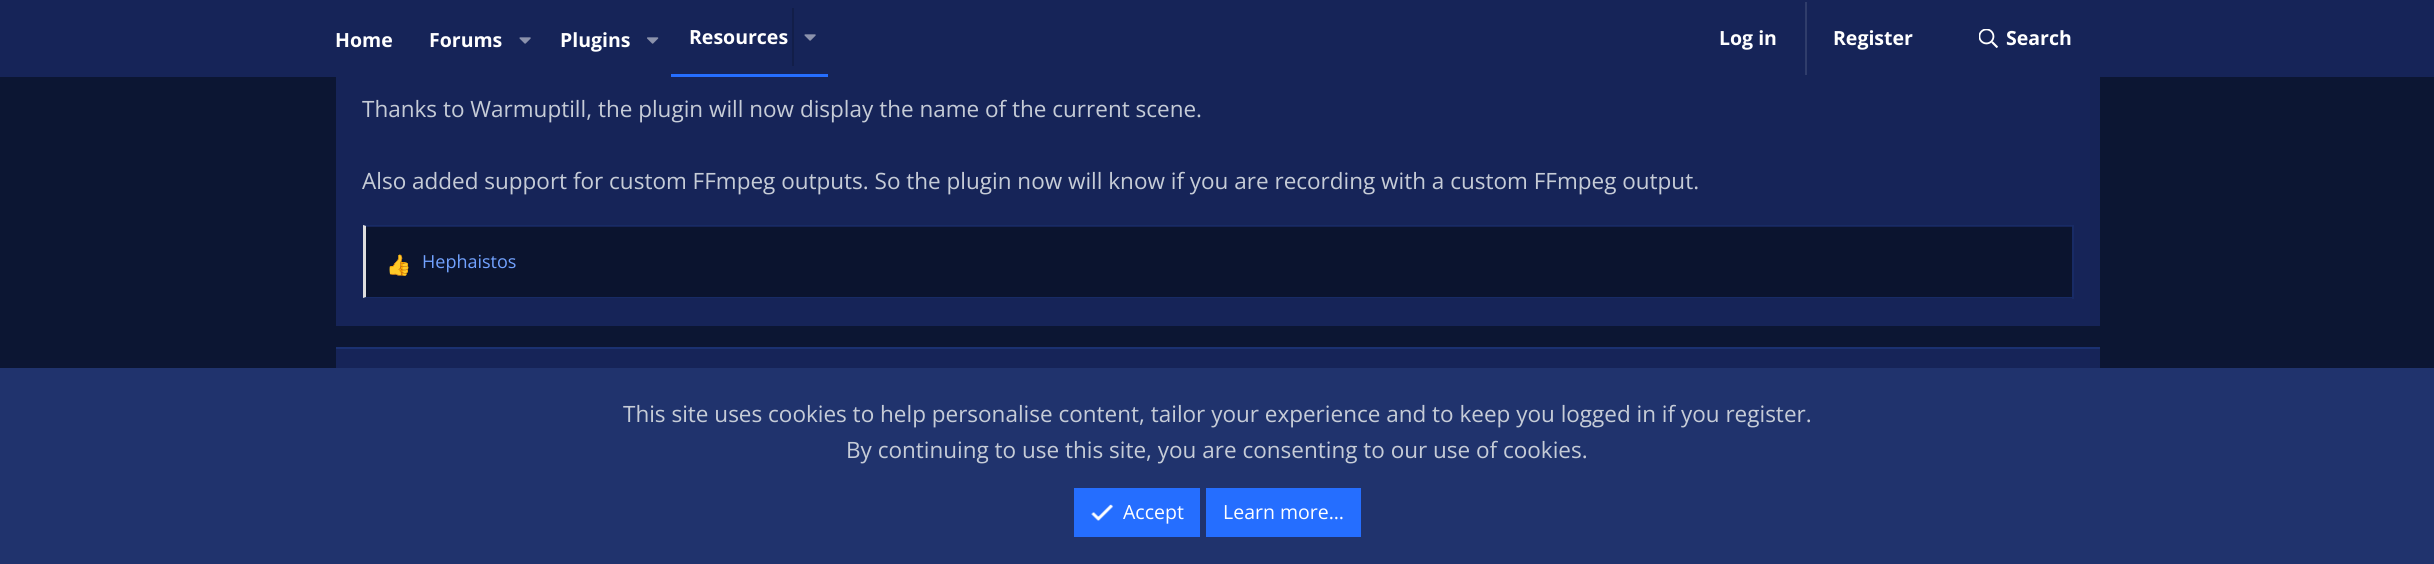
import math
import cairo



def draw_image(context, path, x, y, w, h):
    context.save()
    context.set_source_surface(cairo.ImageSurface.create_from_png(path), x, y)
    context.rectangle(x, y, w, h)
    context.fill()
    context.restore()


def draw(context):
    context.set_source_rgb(12 / 255, 22 / 255, 51 / 255)
    context.paint()
    context.set_source_rgb(22 / 255, 36 / 255, 88 / 255)
    context.rectangle(0, 0, 2434, 77)
    context.fill()
    draw_image(context, "images/1.png", 519, 37, 12, 7)
    draw_image(context, "images/2.png", 647, 37, 12, 7)
    context.set_source_rgb(37 / 255, 110 / 255, 1)
    context.rectangle(671, 74, 157, 3)
    context.fill()
    context.set_source_rgb(18 / 255, 30 / 255, 73 / 255)
    context.rectangle(792, 8, 2, 58)
    context.fill()
    draw_image(context, "images/1.png", 804, 34, 12, 7)
    context.set_source_rgb(48 / 255, 61 / 255, 107 / 255)
    context.rectangle(1805, 2, 2, 73)
    context.fill()
    draw_image(context, "images/3.png", 1979, 29, 19, 19)
    context.set_source_rgb(22 / 255, 36 / 255, 88 / 255)
    context.rectangle(336, 77, 1764, 249)
    context.fill()
    context.set_source_rgb(11 / 255, 20 / 255, 47 / 255)
    context.rectangle(366, 227, 1706, 70)
    context.fill()
    context.set_source_rgb(24 / 255, 43 / 255, 101 / 255)
    context.new_path()
    context.move_to(363, 225)
    context.line_to(2073, 225)
    context.line_to(2072, 226)
    context.line_to(366, 226)
    context.close_path()
    context.fill()
    context.rectangle(2072, 225, 2, 74)
    context.fill()
    context.new_path()
    context.move_to(2073, 298)
    context.line_to(363, 298)
    context.line_to(366, 297)
    context.line_to(2072, 297)
    context.close_path()
    context.fill()
    context.set_source_rgb(222 / 255, 222 / 255, 222 / 255)
    context.new_path()
    context.move_to(363, 298)
    context.line_to(363, 225)
    context.line_to(366, 226)
    context.line_to(366, 297)
    context.close_path()
    context.fill()
    draw_image(context, "images/4.png", 389, 254, 20, 22)
    context.set_source_rgb(22 / 255, 36 / 255, 88 / 255)
    context.rectangle(336, 349, 1764, 19)
    context.fill()
    context.set_source_rgb(27 / 255, 49 / 255, 113 / 255)
    context.rectangle(336, 347, 1764, 2)
    context.fill()
    context.set_source_rgb(32 / 255, 51 / 255, 109 / 255)
    context.rectangle(0, 368, 2434, 196)
    context.fill()
    context.set_source_rgb(37 / 255, 110 / 255, 1)
    context.rectangle(1074, 488, 126, 49)
    context.fill()
    draw_image(context, "images/5.png", 1091, 504, 23, 17)
    context.rectangle(1206, 488, 155, 49)
    context.fill()
    context.select_font_face("Open Sans", cairo.FontSlant.NORMAL, cairo.FontWeight.BOLD)
    context.set_font_size(19.5)
    context.set_source_rgb(1, 1, 1)
    context.move_to(335, 47)
    context.show_text("Home")
    context.move_to(429, 47)
    context.show_text("Forums")
    context.move_to(560, 47)
    context.show_text("Plugins")
    context.move_to(689, 44)
    context.show_text("Resources")
    context.move_to(1719, 45)
    context.show_text("Log in")
    context.move_to(1833, 45)
    context.show_text("Register")
    context.move_to(2006, 45)
    context.show_text("Search")
    context.select_font_face("Open Sans")
    context.set_font_size(22.5)
    context.set_source_rgb(198 / 255, 204 / 255, 215 / 255)
    context.move_to(362, 117)
    context.show_text("Thanks to Warmuptill, the plugin will now display the name of the current scene.")
    context.move_to(362, 189)
    context.show_text("Also added support for custom FFmpeg outputs. So the plugin now will know if you are recording with a custom FFmpeg output.")
    context.set_font_size(18)
    context.set_source_rgb(114 / 255, 162 / 255, 1)
    context.move_to(422, 268)
    context.show_text("Hephaistos")
    context.set_font_size(22.5)
    context.set_source_rgb(198 / 255, 204 / 255, 215 / 255)
    context.move_to(623, 422)
    context.show_text("This site uses cookies to help personalise content, tailor your experience and to keep you logged in if you register.")
    context.move_to(846, 458)
    context.show_text("By continuing to use this site, you are consenting to our use of cookies.")
    context.set_font_size(19.5)
    context.set_source_rgb(1, 1, 1)
    context.move_to(1123, 519)
    context.show_text("Accept")
    context.move_to(1223, 519)
    context.show_text("Learn more…")


surface = cairo.ImageSurface(cairo.Format.RGB24, 2434, 564)
context = cairo.Context(surface)
options = cairo.FontOptions()
options.set_hint_metrics(cairo.HintMetrics.OFF)
options.set_hint_style(cairo.HintStyle.NONE)
context.set_font_options(options)
context.set_miter_limit(4)
draw(context)
surface.write_to_png("out.png")
